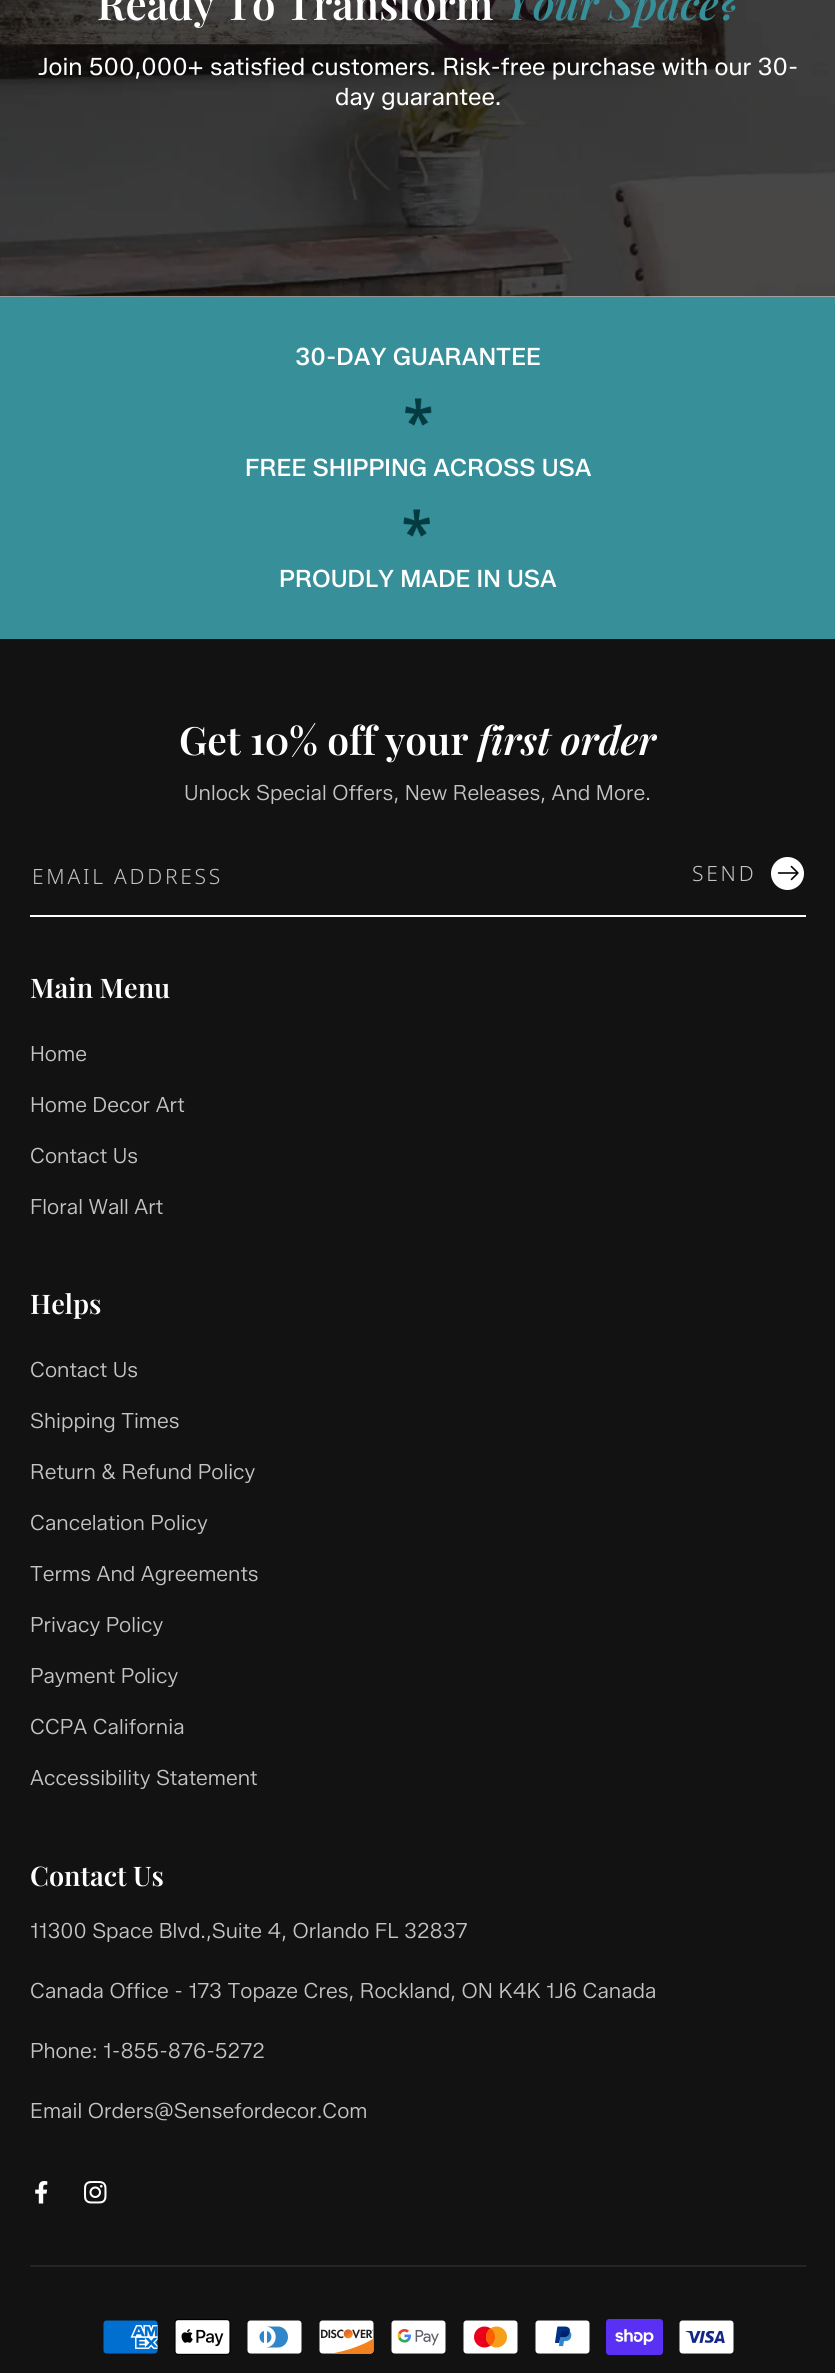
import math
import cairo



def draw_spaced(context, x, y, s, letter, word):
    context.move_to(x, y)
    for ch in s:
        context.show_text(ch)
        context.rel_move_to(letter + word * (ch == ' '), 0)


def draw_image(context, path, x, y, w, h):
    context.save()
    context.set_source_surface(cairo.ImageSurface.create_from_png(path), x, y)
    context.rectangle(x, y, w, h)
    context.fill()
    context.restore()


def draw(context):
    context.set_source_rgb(1, 1, 1)
    context.paint()
    draw_image(context, "images/1.png", 0, 0, 835, 297)
    context.set_source_rgb(54 / 255, 143 / 255, 153 / 255)
    context.rectangle(0, 297, 835, 342)
    context.fill()
    draw_image(context, "images/2.png", 405, 398, 27, 28)
    draw_image(context, "images/3.png", 403, 509, 27, 28)
    context.set_source_rgb(18 / 255, 18 / 255, 18 / 255)
    context.rectangle(0, 639, 835, 1734)
    context.fill()
    context.set_source_rgb(1, 1, 1)
    context.rectangle(30, 915, 776, 2)
    context.fill()
    context.arc(787.5, 873.5, 16.5, 0, 2 * math.pi)
    context.fill()
    draw_image(context, "images/4.png", 777, 865, 22, 16)
    draw_image(context, "images/5.png", 35, 2181, 13, 23)
    draw_image(context, "images/6.png", 84, 2181, 23, 23)
    context.set_source_rgb(37 / 255, 37 / 255, 37 / 255)
    context.rectangle(30, 2265, 776, 2)
    context.fill()
    draw_image(context, "images/7.png", 103, 2320, 55, 34)
    draw_image(context, "images/8.png", 174, 2319, 57, 36)
    draw_image(context, "images/9.png", 247, 2320, 55, 34)
    draw_image(context, "images/10.png", 319, 2320, 55, 34)
    draw_image(context, "images/11.png", 391, 2320, 55, 34)
    draw_image(context, "images/12.png", 463, 2320, 55, 34)
    draw_image(context, "images/13.png", 535, 2320, 55, 34)
    draw_image(context, "images/14.png", 606, 2319, 57, 36)
    draw_image(context, "images/15.png", 679, 2320, 55, 34)
    context.select_font_face("Playfair Display SemiBold")
    context.set_font_size(42)
    context.set_source_rgb(1, 1, 1)
    context.move_to(97, 20)
    context.show_text("Ready To Transform")
    context.select_font_face("Playfair Display SemiBold", cairo.FontSlant.ITALIC)
    context.set_source_rgb(54 / 255, 143 / 255, 153 / 255)
    context.move_to(503, 20)
    context.show_text("Your Space?")
    context.select_font_face("Zalando Sans")
    context.set_font_size(24)
    context.set_source_rgb(1, 1, 1)
    context.move_to(38, 75)
    context.show_text("Join 500,000+ satisfied customers. Risk-free purchase with our 30-")
    context.move_to(335, 105)
    context.show_text("day guarantee.")
    context.select_font_face("Zalando Sans Medium")
    context.move_to(295, 365)
    context.show_text("30-DAY GUARANTEE")
    context.move_to(245, 476)
    context.show_text("FREE SHIPPING ACROSS USA")
    context.move_to(279, 587)
    context.show_text("PROUDLY MADE IN USA")
    context.select_font_face("Playfair Display SemiBold")
    context.set_font_size(39)
    context.move_to(179, 755)
    context.show_text("Get 10% off your")
    context.select_font_face("Playfair Display SemiBold", cairo.FontSlant.ITALIC)
    context.move_to(478, 755)
    context.show_text("first order")
    context.select_font_face("Zalando Sans Light")
    context.set_font_size(21)
    context.set_source_rgb(196 / 255, 196 / 255, 196 / 255)
    context.move_to(184, 800)
    context.show_text("Unlock Special Offers, New Releases, And More.")
    context.select_font_face("Noto Sans Light")
    draw_spaced(context, 32, 884, "EMAIL ADDRESS", 2.75, 0)
    draw_spaced(context, 692, 881, "SEND", 2.75, 0)
    context.select_font_face("Playfair Display SemiBold")
    context.set_font_size(27)
    context.set_source_rgb(1, 1, 1)
    context.move_to(30, 998)
    context.show_text("Main Menu")
    context.select_font_face("Zalando Sans Light")
    context.set_font_size(21)
    context.set_source_rgb(196 / 255, 196 / 255, 196 / 255)
    context.move_to(30, 1061)
    context.show_text("Home")
    context.move_to(30, 1112)
    context.show_text("Home Decor Art")
    context.move_to(30, 1163)
    context.show_text("Contact Us")
    context.move_to(30, 1214)
    context.show_text("Floral Wall Art")
    context.select_font_face("Playfair Display SemiBold")
    context.set_font_size(27)
    context.set_source_rgb(1, 1, 1)
    context.move_to(30, 1314)
    context.show_text("Helps")
    context.select_font_face("Zalando Sans Light")
    context.set_font_size(21)
    context.set_source_rgb(196 / 255, 196 / 255, 196 / 255)
    context.move_to(30, 1377)
    context.show_text("Contact Us")
    context.move_to(30, 1428)
    context.show_text("Shipping Times")
    context.move_to(30, 1479)
    context.show_text("Return & Refund Policy")
    context.move_to(30, 1530)
    context.show_text("Cancelation Policy")
    context.move_to(30, 1581)
    context.show_text("Terms And Agreements")
    context.move_to(30, 1632)
    context.show_text("Privacy Policy")
    context.move_to(30, 1683)
    context.show_text("Payment Policy")
    context.move_to(30, 1734)
    context.show_text("CCPA California")
    context.move_to(30, 1785)
    context.show_text("Accessibility Statement")
    context.select_font_face("Playfair Display SemiBold")
    context.set_font_size(27)
    context.set_source_rgb(1, 1, 1)
    context.move_to(30, 1886)
    context.show_text("Contact Us")
    context.select_font_face("Zalando Sans Light")
    context.set_font_size(21)
    context.set_source_rgb(196 / 255, 196 / 255, 196 / 255)
    context.move_to(30, 1938)
    context.show_text("11300 Space Blvd.,Suite 4, Orlando FL 32837")
    context.move_to(30, 1998)
    context.show_text("Canada Office - 173 Topaze Cres, Rockland, ON K4K 1J6 Canada")
    context.move_to(30, 2058)
    context.show_text("Phone: 1-855-876-5272")
    context.move_to(30, 2118)
    context.show_text("Email Orders@Sensefordecor.Com")


surface = cairo.ImageSurface(cairo.Format.RGB24, 835, 2373)
context = cairo.Context(surface)
options = cairo.FontOptions()
options.set_hint_metrics(cairo.HintMetrics.OFF)
options.set_hint_style(cairo.HintStyle.NONE)
context.set_font_options(options)
context.set_miter_limit(4)
draw(context)
surface.write_to_png("out.png")
